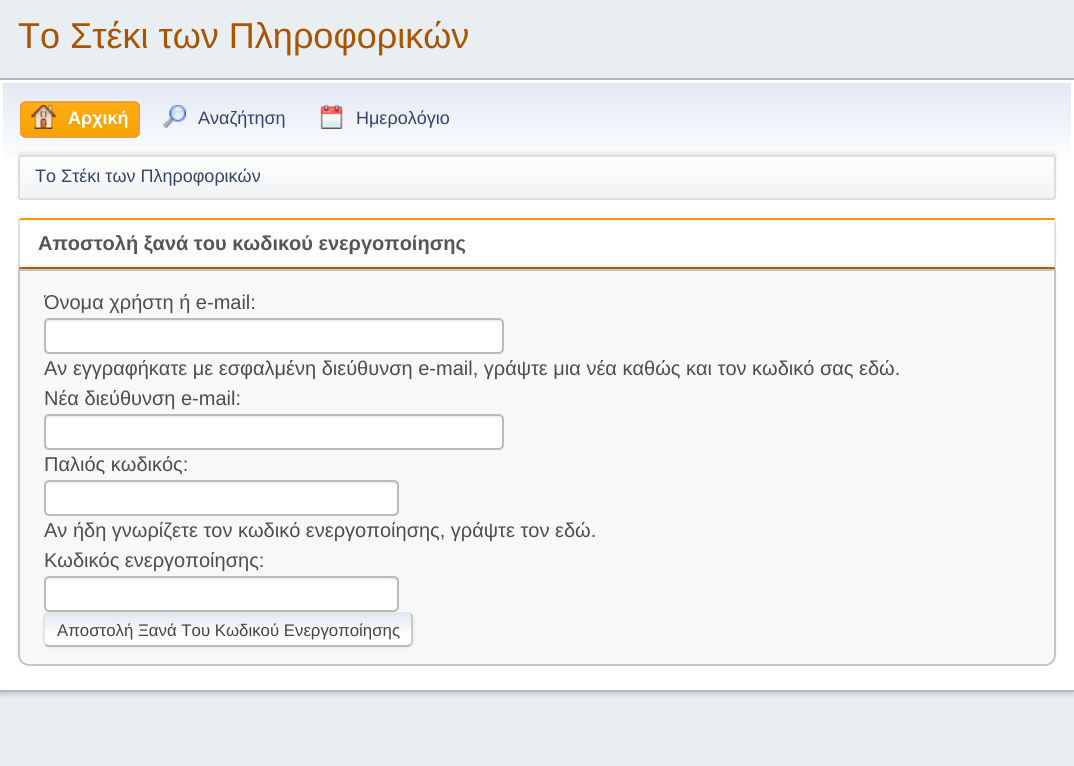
import math
import cairo



def rounded_rect(context, x, y, w, h, r):
    context.new_sub_path()
    for i, (u, v) in enumerate([(x + w - r, y + h - r), (x + r, y + h - r), (x + r, y + r), (x + w - r, y + r)]):
        context.arc(u, v, r, i * math.pi / 2, (i + 1) * math.pi / 2)
    context.close_path()


def draw_shadow(context, x, y, w, h, r, blur, alpha):
    context.push_group_with_content(cairo.Content.ALPHA)
    context.set_operator(cairo.Operator.SOURCE)
    for i in range(15, -16, -2):
        e = blur * i / 6
        if min(w, h) + 2 * e > 0:
            context.set_source_rgba(0, 0, 0, alpha * math.erfc((i - 1) / 8.5) / 2)
            rounded_rect(context, x - e, y - e, w + 2 * e, h + 2 * e, max(0, min(r + e + blur * .6, min(w, h) / 2 + e)))
            context.fill()
    context.mask(context.pop_group())


def draw_image(context, path, x, y, w, h):
    context.save()
    context.set_source_surface(cairo.ImageSurface.create_from_png(path), x, y)
    context.rectangle(x, y, w, h)
    context.fill()
    context.restore()


def draw(context):
    context.set_source_rgb(233 / 255, 238 / 255, 242 / 255)
    context.paint()
    context.set_source_rgb(0, 0, 0)
    draw_shadow(context, 0, 81, 1074, 614, 0, 2, 0.14)
    context.set_source_rgb(1, 1, 1)
    context.rectangle(0, 80, 1074, 610)
    context.fill()
    context.set_source_rgb(184 / 255, 184 / 255, 184 / 255)
    context.rectangle(0, 78, 1074, 2)
    context.fill()
    context.rectangle(0, 690, 1074, 2)
    context.fill()
    gradient = cairo.LinearGradient(537, 82, 537, 203)
    gradient.add_color_stop_rgba(0, 226 / 255, 233 / 255, 243 / 255, 1)
    gradient.add_color_stop_rgba(0.7, 1, 1, 1, 1)
    context.set_source(gradient)
    context.rectangle(3, 83, 1068, 76)
    context.fill()
    context.save()
    rounded_rect(context, 20, 101, 120, 37, 6)
    context.clip()
    gradient = cairo.LinearGradient(80, 102, 80, 137)
    gradient.add_color_stop_rgba(0, 1, 174 / 255, 20 / 255, 1)
    gradient.add_color_stop_rgba(1, 245 / 255, 161 / 255, 0, 1)
    context.set_source(gradient)
    context.rectangle(20, 102, 120, 35)
    context.fill()
    context.restore()
    rounded_rect(context, 21, 102, 118, 35, 5)
    context.set_source_rgb(244 / 255, 154 / 255, 58 / 255)
    context.stroke()
    draw_image(context, "images/1.png", 31, 105, 25, 24)
    draw_image(context, "images/2.png", 163, 105, 23, 23)
    draw_image(context, "images/3.png", 320, 105, 23, 24)
    context.set_source_rgb(0, 0, 0)
    draw_shadow(context, 18, 152, 1038, 45, 3, 1.5, 0.08)
    context.save()
    rounded_rect(context, 18, 155, 1038, 45, 3)
    context.clip()
    gradient = cairo.LinearGradient(537, 156, 537, 198)
    gradient.add_color_stop_rgba(0, 1, 1, 1, 1)
    gradient.add_color_stop_rgba(0.95, 241 / 255, 243 / 255, 245 / 255, 1)
    context.set_source(gradient)
    context.rectangle(18, 156, 1038, 42)
    context.fill()
    context.restore()
    rounded_rect(context, 19, 156, 1036, 43, 2)
    context.set_source_rgb(221 / 255, 221 / 255, 221 / 255)
    context.stroke()
    context.set_source_rgb(1, 148 / 255, 0)
    context.new_path()
    context.move_to(21, 218)
    context.line_to(19, 219)
    context.line_to(20, 222)
    context.line_to(20, 220)
    context.line_to(1054, 220)
    context.line_to(1054, 222)
    context.line_to(1055, 219)
    context.line_to(1053, 218)
    context.close_path()
    context.fill()
    context.set_source_rgb(221 / 255, 221 / 255, 221 / 255)
    context.new_path()
    context.move_to(1055, 219)
    context.curve_to(1057, 220, 1056, 264, 1056, 270)
    context.line_to(1054, 266)
    context.line_to(1054, 222)
    context.close_path()
    context.fill()
    context.set_source_rgb(191 / 255, 105 / 255, 0)
    context.new_path()
    context.move_to(1056, 270)
    context.line_to(1054, 266)
    context.line_to(1054, 267)
    context.line_to(20, 267)
    context.line_to(20, 266)
    context.line_to(18, 270)
    context.close_path()
    context.fill()
    context.set_source_rgb(221 / 255, 221 / 255, 221 / 255)
    context.new_path()
    context.move_to(18, 270)
    context.line_to(20, 266)
    context.line_to(20, 222)
    context.line_to(19, 219)
    context.line_to(18, 220)
    context.close_path()
    context.fill()
    context.set_source_rgb(0, 0, 0)
    draw_shadow(context, 18, 266, 1038, 397, 11, 1.5, 0.1)
    context.set_source_rgb(248 / 255, 248 / 255, 248 / 255)
    context.new_path()
    context.move_to(19, 270)
    context.line_to(1055, 270)
    context.line_to(1055, 655)
    context.curve_to(1055, 660.5, 1050.5, 665, 1045, 665)
    context.line_to(29, 665)
    context.curve_to(23.5, 665, 19, 660.5, 19, 655)
    context.close_path()
    context.fill_preserve()
    context.set_source_rgb(197 / 255, 197 / 255, 197 / 255)
    context.stroke()
    context.set_source_rgb(1, 1, 1)
    rounded_rect(context, 44, 318, 460, 36, 5)
    context.fill()
    context.set_source_rgb(236 / 255, 241 / 255, 248 / 255)
    context.new_path()
    context.move_to(50, 322)
    context.line_to(501, 322)
    context.line_to(503, 323)
    context.curve_to(503, 321, 502, 320, 500, 320)
    context.line_to(48, 320)
    context.curve_to(46, 320, 45, 321, 45, 323)
    context.line_to(45, 350)
    context.curve_to(45, 351, 45, 352, 46, 352)
    context.line_to(46, 330)
    context.curve_to(46, 327, 45, 322, 50, 322)
    context.close_path()
    context.fill()
    rounded_rect(context, 45, 319, 458, 34, 4)
    context.set_source_rgb(187 / 255, 187 / 255, 187 / 255)
    context.stroke()
    context.set_source_rgb(1, 1, 1)
    rounded_rect(context, 44, 414, 460, 36, 5)
    context.fill()
    context.set_source_rgb(236 / 255, 241 / 255, 248 / 255)
    context.new_path()
    context.move_to(50, 418)
    context.line_to(501, 418)
    context.line_to(503, 419)
    context.curve_to(503, 417, 502, 416, 500, 416)
    context.line_to(48, 416)
    context.curve_to(46, 416, 45, 417, 45, 419)
    context.line_to(45, 446)
    context.curve_to(45, 447, 45, 448, 46, 448)
    context.line_to(46, 426)
    context.curve_to(46, 423, 45, 418, 50, 418)
    context.close_path()
    context.fill()
    rounded_rect(context, 45, 415, 458, 34, 4)
    context.set_source_rgb(187 / 255, 187 / 255, 187 / 255)
    context.stroke()
    context.set_source_rgb(1, 1, 1)
    rounded_rect(context, 44, 480, 355, 36, 5)
    context.fill()
    context.set_source_rgb(236 / 255, 241 / 255, 248 / 255)
    context.new_path()
    context.move_to(50, 484)
    context.line_to(396, 484)
    context.line_to(398, 485)
    context.curve_to(398, 483, 397, 482, 395, 482)
    context.line_to(48, 482)
    context.curve_to(46, 482, 45, 483, 45, 485)
    context.line_to(45, 512)
    context.curve_to(45, 513, 45, 514, 46, 514)
    context.line_to(46, 492)
    context.curve_to(46, 489, 45, 484, 50, 484)
    context.close_path()
    context.fill()
    rounded_rect(context, 45, 481, 353, 34, 4)
    context.set_source_rgb(187 / 255, 187 / 255, 187 / 255)
    context.stroke()
    context.set_source_rgb(1, 1, 1)
    rounded_rect(context, 44, 576, 355, 36, 5)
    context.fill()
    context.set_source_rgb(236 / 255, 241 / 255, 248 / 255)
    context.new_path()
    context.move_to(50, 580)
    context.line_to(396, 580)
    context.line_to(398, 581)
    context.curve_to(398, 579, 397, 578, 395, 578)
    context.line_to(48, 578)
    context.curve_to(46, 578, 45, 579, 45, 581)
    context.line_to(45, 608)
    context.curve_to(45, 609, 45, 610, 46, 610)
    context.line_to(46, 588)
    context.curve_to(46, 585, 45, 580, 50, 580)
    context.close_path()
    context.fill()
    rounded_rect(context, 45, 577, 353, 34, 4)
    context.set_source_rgb(187 / 255, 187 / 255, 187 / 255)
    context.stroke()
    context.set_source_rgb(221 / 255, 221 / 255, 221 / 255)
    draw_shadow(context, 45, 614, 369, 34, 5, 1, 0.57)
    context.save()
    rounded_rect(context, 44, 612, 369, 35, 5)
    context.clip()
    gradient = cairo.LinearGradient(228, 582, 228, 614)
    gradient.add_color_stop_rgba(0, 226 / 255, 233 / 255, 243 / 255, 1)
    gradient.add_color_stop_rgba(0.7, 1, 1, 1, 1)
    context.set_source(gradient)
    context.rectangle(44, 612, 369, 2)
    context.fill()
    gradient = cairo.LinearGradient(228, 614, 228, 645)
    gradient.add_color_stop_rgba(0, 226 / 255, 233 / 255, 243 / 255, 1)
    gradient.add_color_stop_rgba(0.7, 1, 1, 1, 1)
    context.set_source(gradient)
    context.rectangle(44, 614, 369, 31)
    context.fill()
    gradient = cairo.LinearGradient(228, 645, 228, 677)
    gradient.add_color_stop_rgba(0, 226 / 255, 233 / 255, 243 / 255, 1)
    gradient.add_color_stop_rgba(0.7, 1, 1, 1, 1)
    context.set_source(gradient)
    context.rectangle(44, 645, 369, 2)
    context.fill()
    context.restore()
    context.new_path()
    context.move_to(410.5, 614)
    context.curve_to(411.5, 614.5, 412, 615.5, 412, 616.5)
    context.line_to(412, 642)
    context.curve_to(412, 643, 411.5, 644, 410.5, 644.5)
    context.set_source_rgb(187 / 255, 187 / 255, 187 / 255)
    context.set_line_width(1.5)
    context.stroke()
    context.new_path()
    context.move_to(410.5, 644.5)
    context.line_to(408, 646)
    context.line_to(48, 646)
    context.line_to(45.5, 644.5)
    context.set_source_rgb(170 / 255, 170 / 255, 170 / 255)
    context.stroke()
    context.new_path()
    context.move_to(45.5, 644.5)
    context.curve_to(43, 642.5, 44, 632.5, 44, 629)
    context.curve_to(44, 626, 43, 616, 45.5, 614)
    context.line_to(48, 613)
    context.line_to(408, 613)
    context.line_to(410.5, 614)
    context.set_source_rgb(221 / 255, 221 / 255, 221 / 255)
    context.stroke()
    context.select_font_face("Liberation Sans")
    context.set_font_size(36)
    context.set_source_rgb(168 / 255, 84 / 255, 0)
    context.move_to(18, 48)
    context.show_text("Το Στέκι των Πληροφορικών")
    context.select_font_face("Liberation Sans", cairo.FontSlant.NORMAL, cairo.FontWeight.BOLD)
    context.set_font_size(18)
    context.set_source_rgb(1, 1, 1)
    context.move_to(68, 124)
    context.show_text("Αρχική")
    context.select_font_face("Liberation Sans")
    context.set_source_rgb(51 / 255, 68 / 255, 102 / 255)
    context.move_to(198, 124)
    context.show_text("Αναζήτηση")
    context.move_to(356, 124)
    context.show_text("Ημερολόγιο")
    context.move_to(35, 182)
    context.show_text("Το Στέκι των Πληροφορικών")
    context.select_font_face("Liberation Sans", cairo.FontSlant.NORMAL, cairo.FontWeight.BOLD)
    context.set_font_size(20)
    context.set_source_rgb(85 / 255, 85 / 255, 85 / 255)
    context.move_to(38, 250)
    context.show_text("Αποστολή ξανά του κωδικού ενεργοποίησης")
    context.save()
    context.rectangle(44, 288, 987, 66)
    context.clip()
    context.select_font_face("Liberation Sans")
    context.set_source_rgb(77 / 255, 77 / 255, 77 / 255)
    context.move_to(44, 309)
    context.show_text("Όνομα χρήστη ή e-mail:")
    context.restore()
    context.select_font_face("Liberation Sans")
    context.set_source_rgb(77 / 255, 77 / 255, 77 / 255)
    context.move_to(44, 375)
    context.show_text("Αν εγγραφήκατε με εσφαλμένη διεύθυνση e-mail, γράψτε μια νέα καθώς και τον κωδικό σας εδώ.")
    context.move_to(44, 405)
    context.show_text("Νέα διεύθυνση e-mail:")
    context.move_to(44, 471)
    context.show_text("Παλιός κωδικός:")
    context.move_to(44, 537)
    context.show_text("Αν ήδη γνωρίζετε τον κωδικό ενεργοποίησης, γράψτε τον εδώ.")
    context.move_to(44, 567)
    context.show_text("Κωδικός ενεργοποίησης:")
    context.set_font_size(16.8)
    context.set_source_rgb(68 / 255, 68 / 255, 68 / 255)
    context.move_to(57, 636)
    context.show_text("Αποστολή Ξανά Του Κωδικού Ενεργοποίησης")


surface = cairo.ImageSurface(cairo.Format.RGB24, 1074, 766)
context = cairo.Context(surface)
options = cairo.FontOptions()
options.set_hint_metrics(cairo.HintMetrics.OFF)
options.set_hint_style(cairo.HintStyle.NONE)
context.set_font_options(options)
context.set_miter_limit(4)
draw(context)
surface.write_to_png("out.png")
